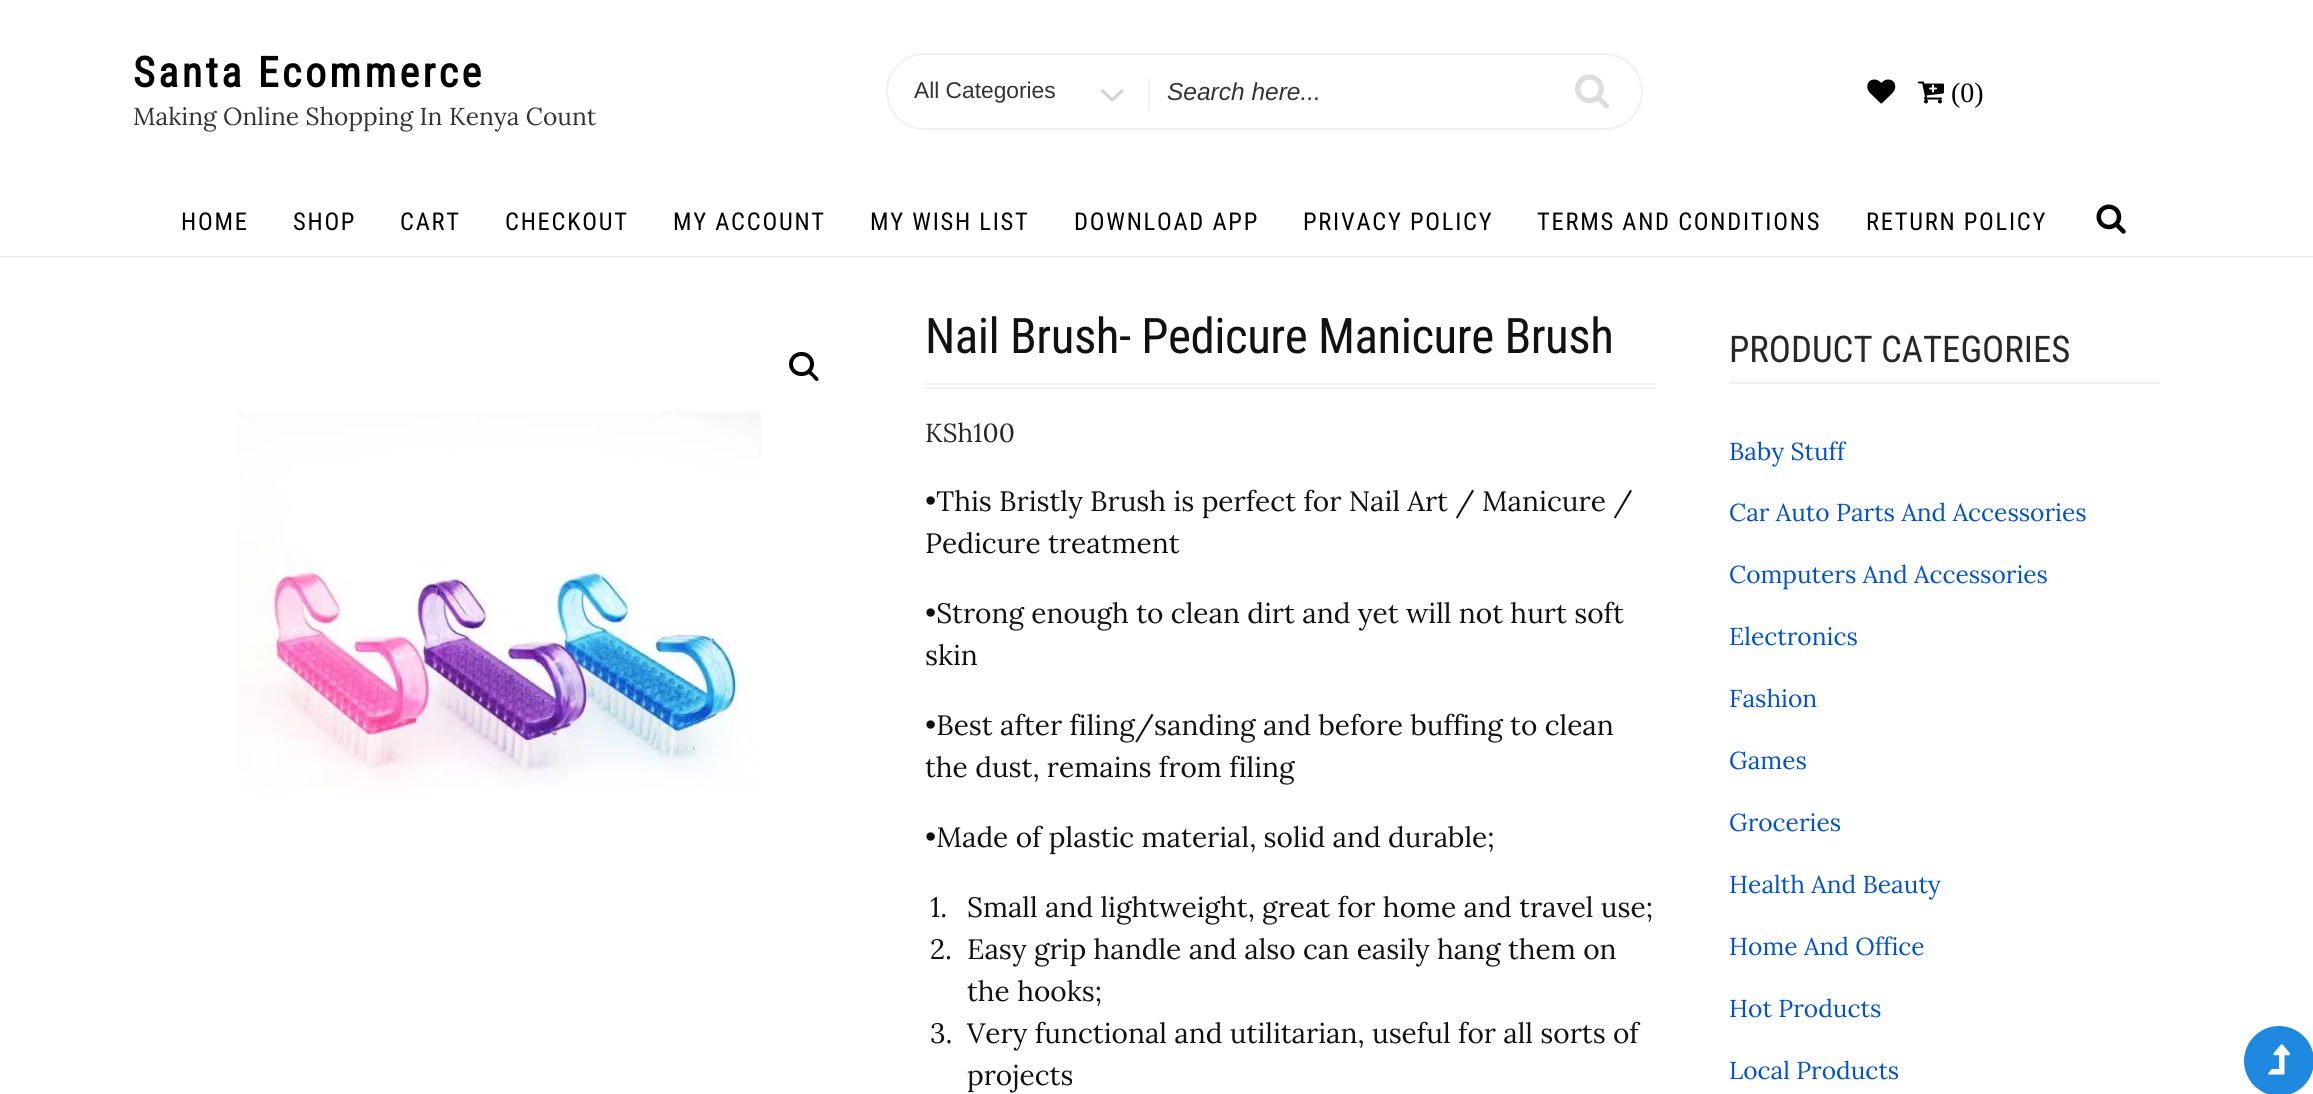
import math
import cairo



def draw_spaced(context, x, y, s, letter, word):
    context.move_to(x, y)
    for ch in s:
        context.show_text(ch)
        context.rel_move_to(letter + word * (ch == ' '), 0)


def rounded_rect(context, x, y, w, h, r):
    context.new_sub_path()
    for i, (u, v) in enumerate([(x + w - r, y + h - r), (x + r, y + h - r), (x + r, y + r), (x + w - r, y + r)]):
        context.arc(u, v, r, i * math.pi / 2, (i + 1) * math.pi / 2)
    context.close_path()


def draw_shadow(context, x, y, w, h, r, blur, alpha):
    context.push_group_with_content(cairo.Content.ALPHA)
    context.set_operator(cairo.Operator.SOURCE)
    for i in range(15, -16, -2):
        e = blur * i / 6
        if min(w, h) + 2 * e > 0:
            context.set_source_rgba(0, 0, 0, alpha * math.erfc((i - 1) / 8.5) / 2)
            rounded_rect(context, x - e, y - e, w + 2 * e, h + 2 * e, max(0, min(r + e + blur * .6, min(w, h) / 2 + e)))
            context.fill()
    context.mask(context.pop_group())


def draw_image(context, path, x, y, w, h):
    context.save()
    context.set_source_surface(cairo.ImageSurface.create_from_png(path), x, y)
    context.rectangle(x, y, w, h)
    context.fill()
    context.restore()


def draw(context):
    context.set_source_rgb(1, 1, 1)
    context.paint()
    context.save()
    context.set_fill_rule(cairo.FillRule.EVEN_ODD)
    context.new_path()
    context.move_to(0, 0)
    context.line_to(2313, 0)
    context.line_to(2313, 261)
    context.line_to(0, 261)
    context.close_path()
    context.move_to(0, 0)
    context.line_to(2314, 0)
    context.line_to(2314, 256)
    context.line_to(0, 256)
    context.close_path()
    context.clip()
    context.set_source_rgb(227 / 255, 227 / 255, 227 / 255)
    draw_shadow(context, 0, 2, 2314, 255, 0, 1, 1)
    context.restore()
    rounded_rect(context, 887, 54, 755, 75, 37.5)
    context.set_source_rgb(240 / 255, 240 / 255, 240 / 255)
    context.stroke()
    draw_image(context, "images/1.png", 1100, 89, 24, 13)
    context.rectangle(1148, 79, 2, 31)
    context.fill()
    draw_image(context, "images/2.png", 1575, 74, 34, 35)
    draw_image(context, "images/3.png", 1867, 79, 29, 25)
    draw_image(context, "images/4.png", 1918, 81, 26, 23)
    draw_image(context, "images/5.png", 2096, 204, 30, 30)
    rounded_rect(context, 791, 354, 21, 20, 10)
    context.set_source_rgb(0, 0, 0)
    context.set_line_width(4)
    context.stroke()
    context.new_path()
    context.move_to(808, 370.5)
    context.curve_to(810, 368.5, 813, 373, 814.5, 374.5)
    context.curve_to(815.5, 375.5, 820, 378.5, 818, 380.5)
    context.curve_to(816, 382.5, 813, 378, 812, 376.5)
    context.curve_to(810.5, 375.5, 806, 372.5, 808, 370.5)
    context.close_path()
    context.fill()
    draw_image(context, "images/6.png", 236, 411, 526, 380)
    context.set_source_rgb(242 / 255, 242 / 255, 242 / 255)
    context.rectangle(924, 383, 732, 2)
    context.fill()
    context.rectangle(924, 387, 732, 2)
    context.fill()
    context.set_source_rgb(240 / 255, 240 / 255, 240 / 255)
    context.rectangle(1729, 382, 431, 2)
    context.fill()
    context.set_source_rgb(31 / 255, 136 / 255, 223 / 255)
    context.arc(2279, 1061, 35, 0, 2 * math.pi)
    context.fill()
    draw_image(context, "images/7.png", 2268, 1044, 22, 31)
    context.select_font_face("Roboto Condensed", cairo.FontSlant.NORMAL, cairo.FontWeight.BOLD)
    context.set_font_size(42)
    context.set_source_rgb(0, 0, 0)
    draw_spaced(context, 133, 87, "Santa Ecommerce", 3.4, 0)
    context.select_font_face("Lora")
    context.set_font_size(24.5)
    context.set_source_rgb(51 / 255, 51 / 255, 51 / 255)
    context.move_to(133, 125)
    context.show_text("Making Online Shopping In Kenya Count")
    context.select_font_face("Liberation Sans")
    context.set_font_size(22.75)
    context.move_to(914, 98)
    context.show_text("All Categories")
    context.select_font_face("Liberation Sans", cairo.FontSlant.ITALIC)
    context.set_font_size(24.5)
    context.move_to(1167, 100)
    context.show_text("Search here...")
    context.select_font_face("Liberation Serif")
    context.set_font_size(28)
    context.set_source_rgb(0, 0, 0)
    context.move_to(1951, 102)
    context.show_text("(0)")
    context.select_font_face("Roboto Condensed")
    context.set_font_size(24.5)
    draw_spaced(context, 181, 230, "HOME", 1.75, 0)
    draw_spaced(context, 293, 230, "SHOP", 1.75, 0)
    draw_spaced(context, 400, 230, "CART", 1.75, 0)
    draw_spaced(context, 505, 230, "CHECKOUT", 1.75, 0)
    draw_spaced(context, 673, 230, "MY ACCOUNT", 1.75, 0)
    draw_spaced(context, 870, 230, "MY WISH LIST", 1.75, 0)
    draw_spaced(context, 1074, 230, "DOWNLOAD APP", 1.75, 0)
    draw_spaced(context, 1303, 230, "PRIVACY POLICY", 1.75, 0)
    draw_spaced(context, 1537, 230, "TERMS AND CONDITIONS", 1.75, 0)
    draw_spaced(context, 1866, 230, "RETURN POLICY", 1.75, 0)
    context.set_font_size(49)
    context.set_source_rgb(17 / 255, 17 / 255, 17 / 255)
    draw_spaced(context, 925, 353, "Nail Brush- Pedicure Manicure Brush", -0.5, 0)
    context.select_font_face("Lora")
    context.set_font_size(26)
    context.set_source_rgb(39 / 255, 39 / 255, 39 / 255)
    context.move_to(925, 442)
    context.show_text("KSh100")
    context.set_font_size(28)
    context.set_source_rgb(17 / 255, 17 / 255, 17 / 255)
    context.move_to(925, 511)
    context.show_text("•This Bristly Brush is perfect for Nail Art / Manicure /")
    context.move_to(925, 553)
    context.show_text("Pedicure treatment")
    context.move_to(925, 623)
    context.show_text("•Strong enough to clean dirt and yet will not hurt soft")
    context.move_to(925, 665)
    context.show_text("skin")
    context.move_to(925, 735)
    context.show_text("•Best after filing/sanding and before buffing to clean")
    context.move_to(925, 777)
    context.show_text("the dust, remains from filing")
    context.move_to(925, 847)
    context.show_text("•Made of plastic material, solid and durable;")
    context.move_to(930, 917)
    context.show_text("1.")
    context.move_to(967, 917)
    context.show_text("Small and lightweight, great for home and travel use;")
    context.move_to(930, 959)
    context.show_text("2.")
    context.move_to(967, 959)
    context.show_text("Easy grip handle and also can easily hang them on")
    context.move_to(967, 1001)
    context.show_text("the hooks;")
    context.move_to(930, 1043)
    context.show_text("3.")
    context.move_to(967, 1043)
    context.show_text("Very functional and utilitarian, useful for all sorts of")
    context.move_to(967, 1085)
    context.show_text("projects")
    context.select_font_face("Roboto Condensed")
    context.set_font_size(36.75)
    context.set_source_rgb(39 / 255, 39 / 255, 39 / 255)
    context.move_to(1729, 362)
    context.show_text("PRODUCT CATEGORIES")
    context.select_font_face("Lora")
    context.set_font_size(24.5)
    context.set_source_rgb(0, 81 / 255, 206 / 255)
    context.move_to(1729, 460)
    context.show_text("Baby Stuff")
    context.move_to(1729, 521)
    context.show_text("Car Auto Parts And Accessories")
    context.move_to(1729, 583)
    context.show_text("Computers And Accessories")
    context.move_to(1729, 645)
    context.show_text("Electronics")
    context.move_to(1729, 707)
    context.show_text("Fashion")
    context.move_to(1729, 769)
    context.show_text("Games")
    context.move_to(1729, 831)
    context.show_text("Groceries")
    context.move_to(1729, 893)
    context.show_text("Health And Beauty")
    context.move_to(1729, 955)
    context.show_text("Home And Office")
    context.move_to(1729, 1017)
    context.show_text("Hot Products")
    context.move_to(1729, 1079)
    context.show_text("Local Products")


surface = cairo.ImageSurface(cairo.Format.RGB24, 2313, 1094)
context = cairo.Context(surface)
options = cairo.FontOptions()
options.set_hint_metrics(cairo.HintMetrics.OFF)
options.set_hint_style(cairo.HintStyle.NONE)
context.set_font_options(options)
context.set_miter_limit(4)
draw(context)
surface.write_to_png("out.png")
